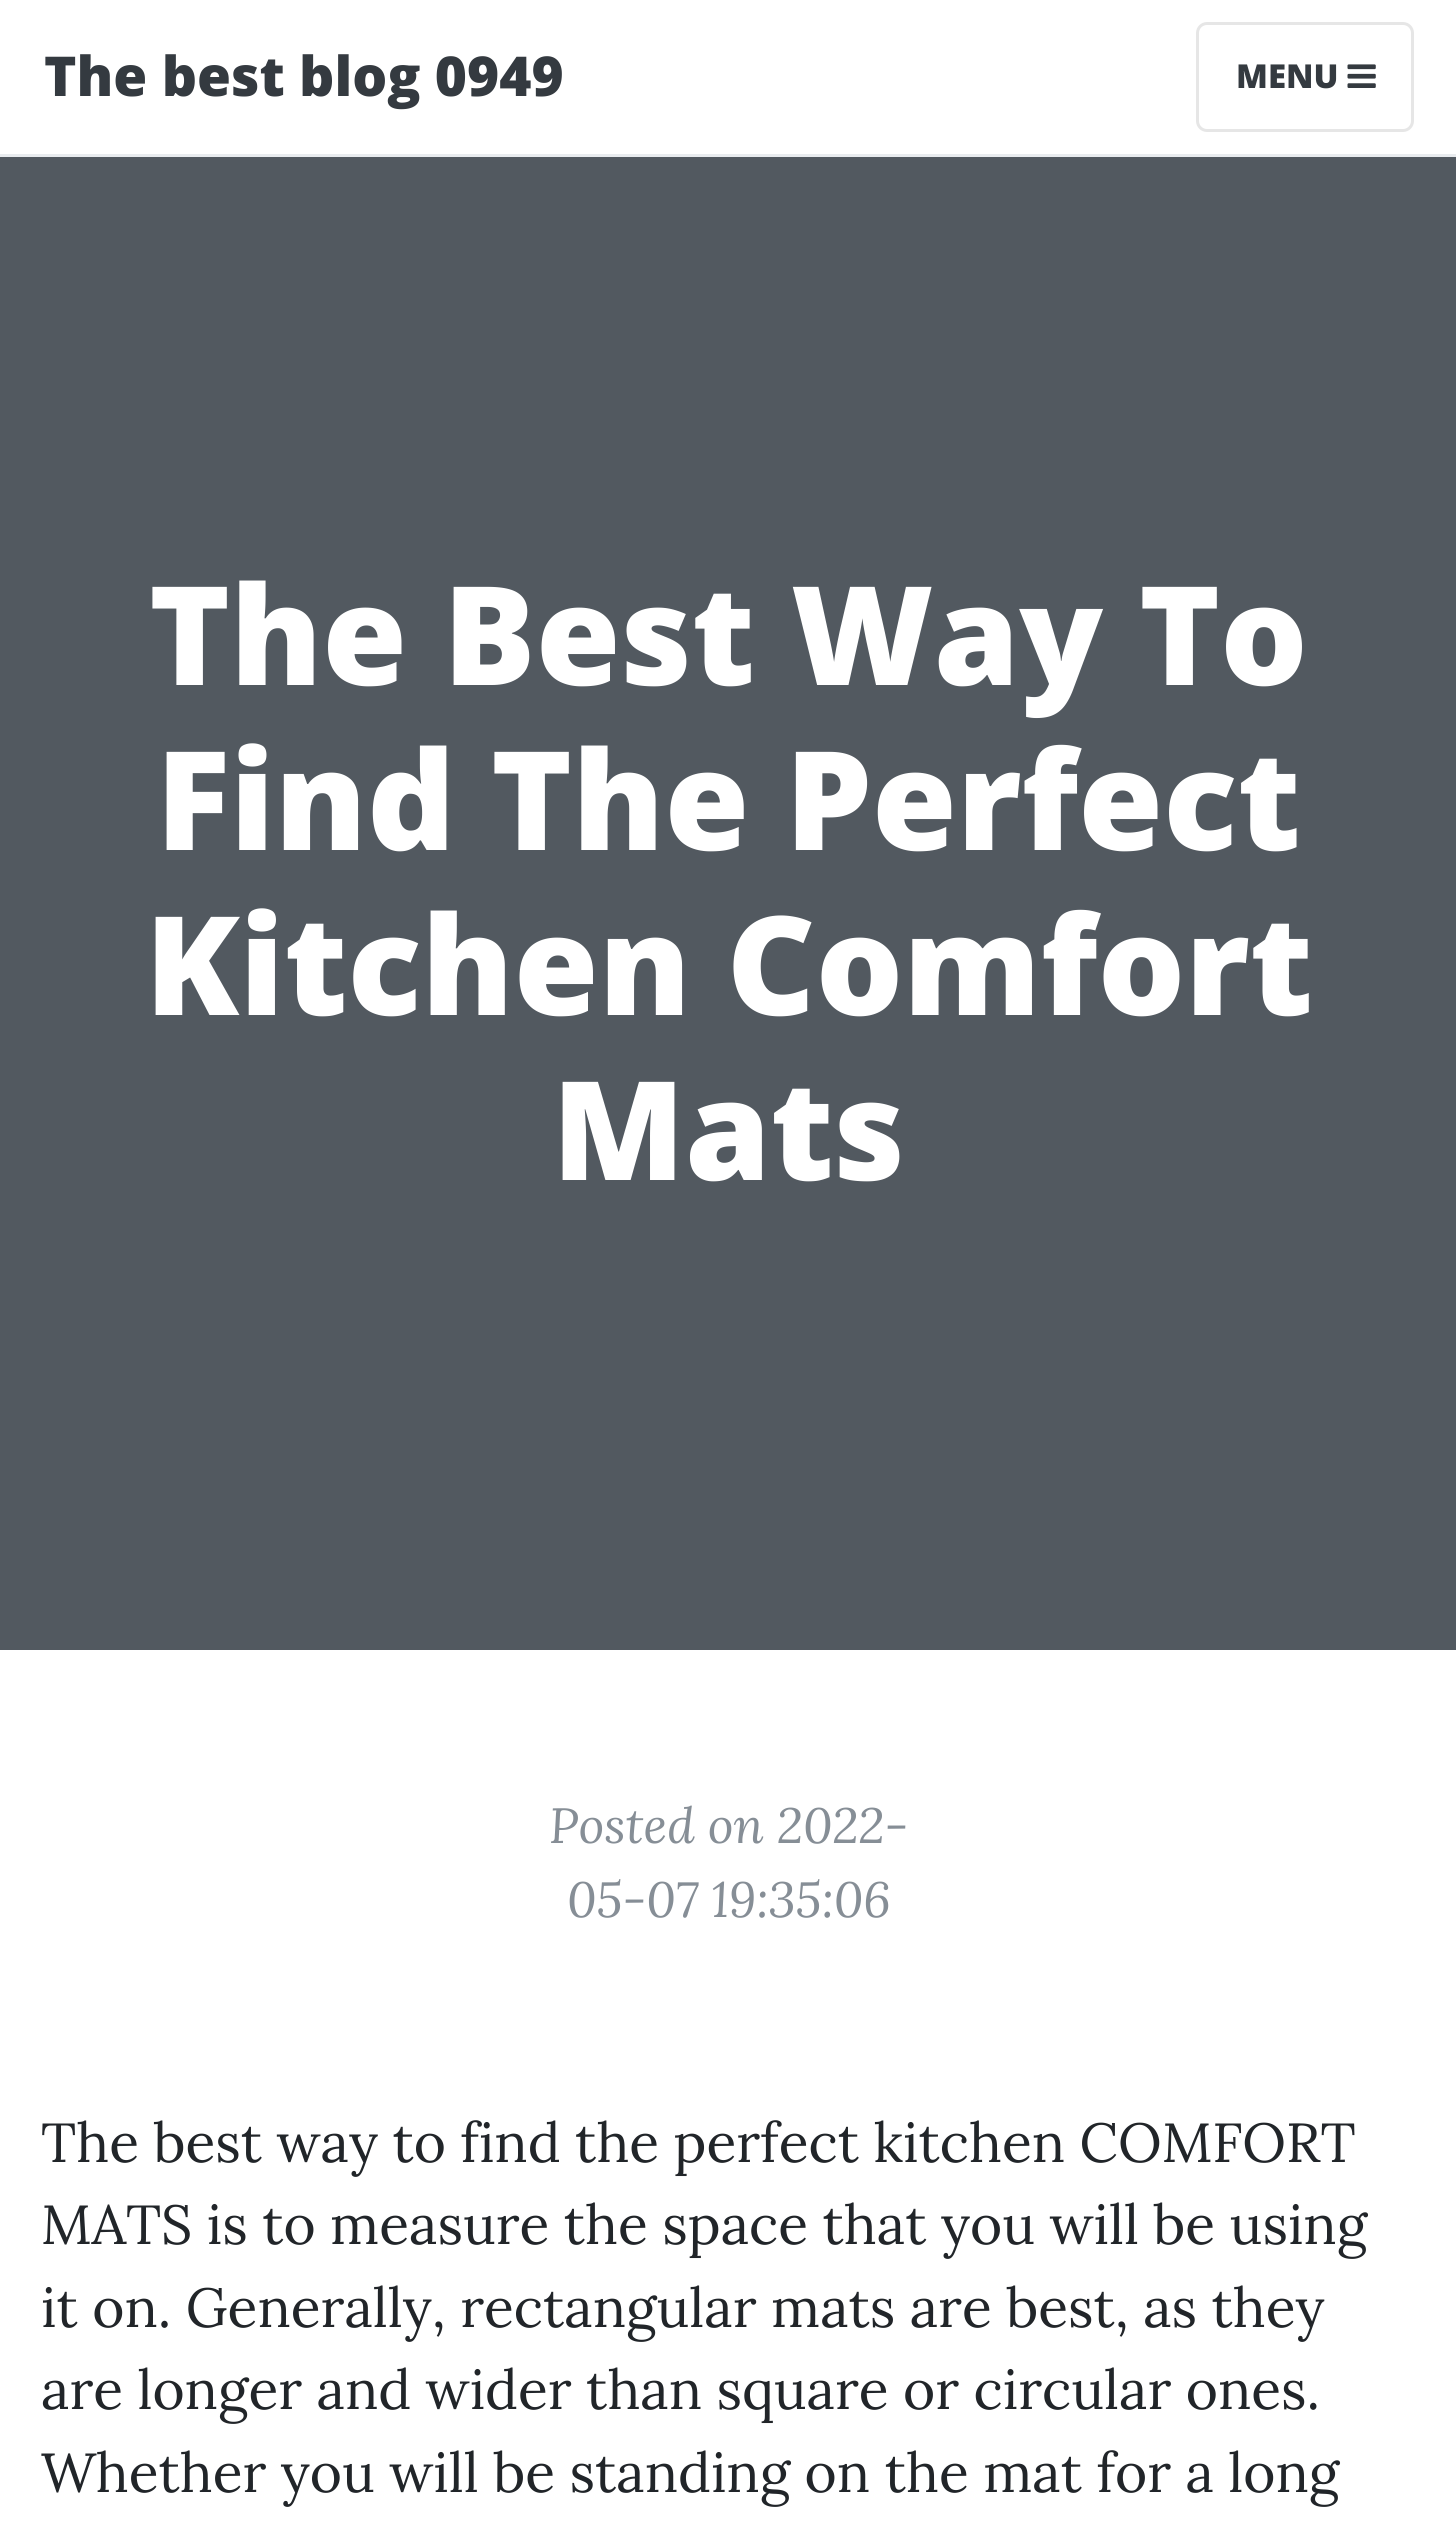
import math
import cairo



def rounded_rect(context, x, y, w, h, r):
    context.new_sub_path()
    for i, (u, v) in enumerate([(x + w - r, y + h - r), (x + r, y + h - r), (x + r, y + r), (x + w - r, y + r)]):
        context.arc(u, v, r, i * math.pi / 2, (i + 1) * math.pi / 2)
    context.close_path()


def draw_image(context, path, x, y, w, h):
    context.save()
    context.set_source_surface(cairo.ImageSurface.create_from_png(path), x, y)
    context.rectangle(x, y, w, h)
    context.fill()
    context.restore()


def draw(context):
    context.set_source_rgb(1, 1, 1)
    context.paint()
    context.set_source_rgb(233 / 255, 236 / 255, 239 / 255)
    context.rectangle(0, 154, 1456, 3)
    context.fill()
    rounded_rect(context, 1197.5, 23.5, 215, 107, 9.5)
    context.set_source_rgb(230 / 255, 230 / 255, 230 / 255)
    context.set_line_width(3)
    context.stroke()
    draw_image(context, "images/1.png", 1347, 64, 29, 24)
    context.set_source_rgb(82 / 255, 89 / 255, 96 / 255)
    context.rectangle(0, 157, 1456, 1493)
    context.fill()
    context.select_font_face("Open Sans ExtraBold")
    context.set_font_size(55)
    context.set_source_rgb(52 / 255, 58 / 255, 64 / 255)
    context.move_to(44, 96)
    context.show_text("The best blog 0949")
    context.set_font_size(33)
    context.move_to(1236, 88)
    context.show_text("MENU")
    context.set_font_size(137.5)
    context.set_source_rgb(1, 1, 1)
    context.move_to(149, 685)
    context.show_text("The Best Way To")
    context.move_to(156, 850)
    context.show_text("Find The Perfect")
    context.move_to(145, 1015)
    context.show_text("Kitchen Comfort")
    context.move_to(552, 1180)
    context.show_text("Mats")
    context.select_font_face("Lora", cairo.FontSlant.ITALIC)
    context.set_font_size(49.5)
    context.set_source_rgb(134 / 255, 142 / 255, 150 / 255)
    context.move_to(549, 1843)
    context.show_text("Posted on 2022-")
    context.move_to(567, 1917)
    context.show_text("05-07 19:35:06")
    context.select_font_face("Lora")
    context.set_font_size(55)
    context.set_source_rgb(33 / 255, 37 / 255, 41 / 255)
    context.move_to(41, 2162)
    context.show_text("The best way to find the perfect kitchen COMFORT")
    context.move_to(41, 2244)
    context.show_text("MATS is to measure the space that you will be using")
    context.move_to(41, 2327)
    context.show_text("it on. Generally, rectangular mats are best, as they")
    context.move_to(41, 2409)
    context.show_text("are longer and wider than square or circular ones.")
    context.move_to(41, 2492)
    context.show_text("Whether you will be standing on the mat for a long")


surface = cairo.ImageSurface(cairo.Format.RGB24, 1456, 2526)
context = cairo.Context(surface)
options = cairo.FontOptions()
options.set_hint_metrics(cairo.HintMetrics.OFF)
options.set_hint_style(cairo.HintStyle.NONE)
context.set_font_options(options)
context.set_miter_limit(4)
draw(context)
surface.write_to_png("out.png")
